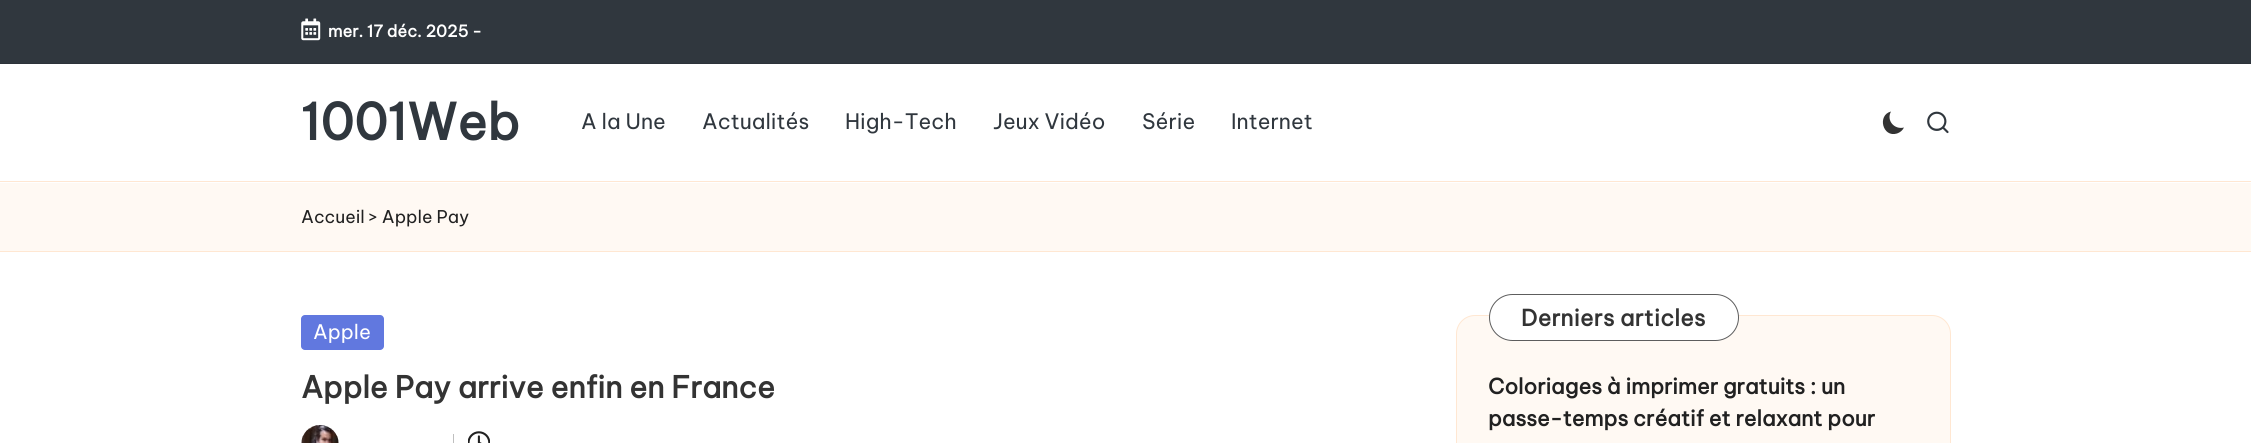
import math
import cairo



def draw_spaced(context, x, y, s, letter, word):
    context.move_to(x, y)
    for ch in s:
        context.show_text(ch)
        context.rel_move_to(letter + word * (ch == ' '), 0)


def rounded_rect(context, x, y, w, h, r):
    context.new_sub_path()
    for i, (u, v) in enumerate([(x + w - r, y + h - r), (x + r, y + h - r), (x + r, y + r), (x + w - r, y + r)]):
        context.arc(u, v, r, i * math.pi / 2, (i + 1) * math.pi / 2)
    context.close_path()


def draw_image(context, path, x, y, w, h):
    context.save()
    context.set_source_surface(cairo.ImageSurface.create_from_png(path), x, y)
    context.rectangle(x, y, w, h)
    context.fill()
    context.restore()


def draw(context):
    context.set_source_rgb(1, 1, 1)
    context.paint()
    context.set_source_rgb(48 / 255, 55 / 255, 62 / 255)
    context.rectangle(0, 0, 2251, 63)
    context.fill()
    context.set_source_rgb(44 / 255, 50 / 255, 57 / 255)
    context.rectangle(0, 63, 2251, 1)
    context.fill()
    draw_image(context, "images/1.png", 301, 18, 20, 23)
    context.set_source_rgb(51 / 255, 51 / 255, 51 / 255)
    context.new_path()
    context.move_to(1904, 127.5)
    context.curve_to(1894.5, 130, 1886, 120.5, 1891, 111.5)
    context.curve_to(1877, 115, 1882.5, 138, 1897, 133.5)
    context.curve_to(1900, 132.5, 1902.5, 130.5, 1904, 127.5)
    context.close_path()
    context.fill()
    draw_image(context, "images/2.png", 1927, 111, 22, 23)
    context.set_source_rgb(1, 249 / 255, 243 / 255)
    context.rectangle(0, 183, 2251, 68)
    context.fill()
    context.set_source_rgb(1, 231 / 255, 210 / 255)
    context.rectangle(0, 181, 2251, 1)
    context.fill()
    context.rectangle(0, 251, 2251, 1)
    context.fill()
    context.set_source_rgb(97 / 255, 120 / 255, 223 / 255)
    rounded_rect(context, 301, 315, 83, 35, 4)
    context.fill()
    draw_image(context, "images/3.png", 301, 425, 38, 18)
    context.set_source_rgb(191 / 255, 191 / 255, 191 / 255)
    context.rectangle(453, 434, 1, 9)
    context.fill()
    draw_image(context, "images/4.png", 468, 431, 22, 12)
    context.set_source_rgb(1, 249 / 255, 243 / 255)
    rounded_rect(context, 1456.5, 315.5, 494, 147, 18.5)
    context.fill_preserve()
    context.set_source_rgb(1, 231 / 255, 210 / 255)
    context.set_line_width(1)
    context.stroke()
    context.set_source_rgb(1, 1, 1)
    rounded_rect(context, 1489, 294, 250, 47, 23.5)
    context.fill()
    rounded_rect(context, 1489.5, 294.5, 249, 46, 23)
    context.set_source_rgba(39 / 255, 39 / 255, 39 / 255, 0.75)
    context.stroke()
    context.select_font_face("Be Vietnam Pro", cairo.FontSlant.NORMAL, cairo.FontWeight.BOLD)
    context.set_font_size(16.25)
    context.set_source_rgb(1, 1, 1)
    context.move_to(328, 37)
    context.show_text("mer. 17 déc. 2025 -")
    context.set_font_size(50)
    context.set_source_rgb(48 / 255, 55 / 255, 62 / 255)
    context.move_to(301, 140)
    context.show_text("1001Web")
    context.select_font_face("Be Vietnam Pro")
    context.set_font_size(21.25)
    context.move_to(581, 129)
    context.show_text("A la Une")
    context.move_to(702, 129)
    context.show_text("Actualités")
    context.move_to(845, 129)
    context.show_text("High-Tech")
    context.move_to(993, 129)
    context.show_text("Jeux Vidéo")
    context.move_to(1142, 129)
    context.show_text("Série")
    context.move_to(1231, 129)
    context.show_text("Internet")
    context.set_font_size(17.5)
    context.set_source_rgb(33 / 255, 33 / 255, 33 / 255)
    context.move_to(301, 223)
    context.show_text("Accueil")
    context.move_to(368, 223)
    context.show_text("> Apple Pay")
    context.set_font_size(20)
    context.set_source_rgb(1, 1, 1)
    context.move_to(313, 339)
    context.show_text("Apple")
    context.select_font_face("Be Vietnam Pro", cairo.FontSlant.NORMAL, cairo.FontWeight.BOLD)
    context.set_font_size(30)
    context.set_source_rgb(51 / 255, 51 / 255, 51 / 255)
    context.move_to(301, 398)
    context.show_text("Apple Pay arrive enfin en France")
    context.set_font_size(22.5)
    draw_spaced(context, 1521, 326, "Derniers articles", 0.3, 0)
    context.set_font_size(21.25)
    context.set_source_rgb(33 / 255, 33 / 255, 33 / 255)
    context.move_to(1488, 394)
    context.show_text("Coloriages à imprimer gratuits : un")
    context.move_to(1488, 426)
    context.show_text("passe-temps créatif et relaxant pour")


surface = cairo.ImageSurface(cairo.Format.RGB24, 2251, 443)
context = cairo.Context(surface)
options = cairo.FontOptions()
options.set_hint_metrics(cairo.HintMetrics.OFF)
options.set_hint_style(cairo.HintStyle.NONE)
context.set_font_options(options)
context.set_miter_limit(4)
draw(context)
surface.write_to_png("out.png")
